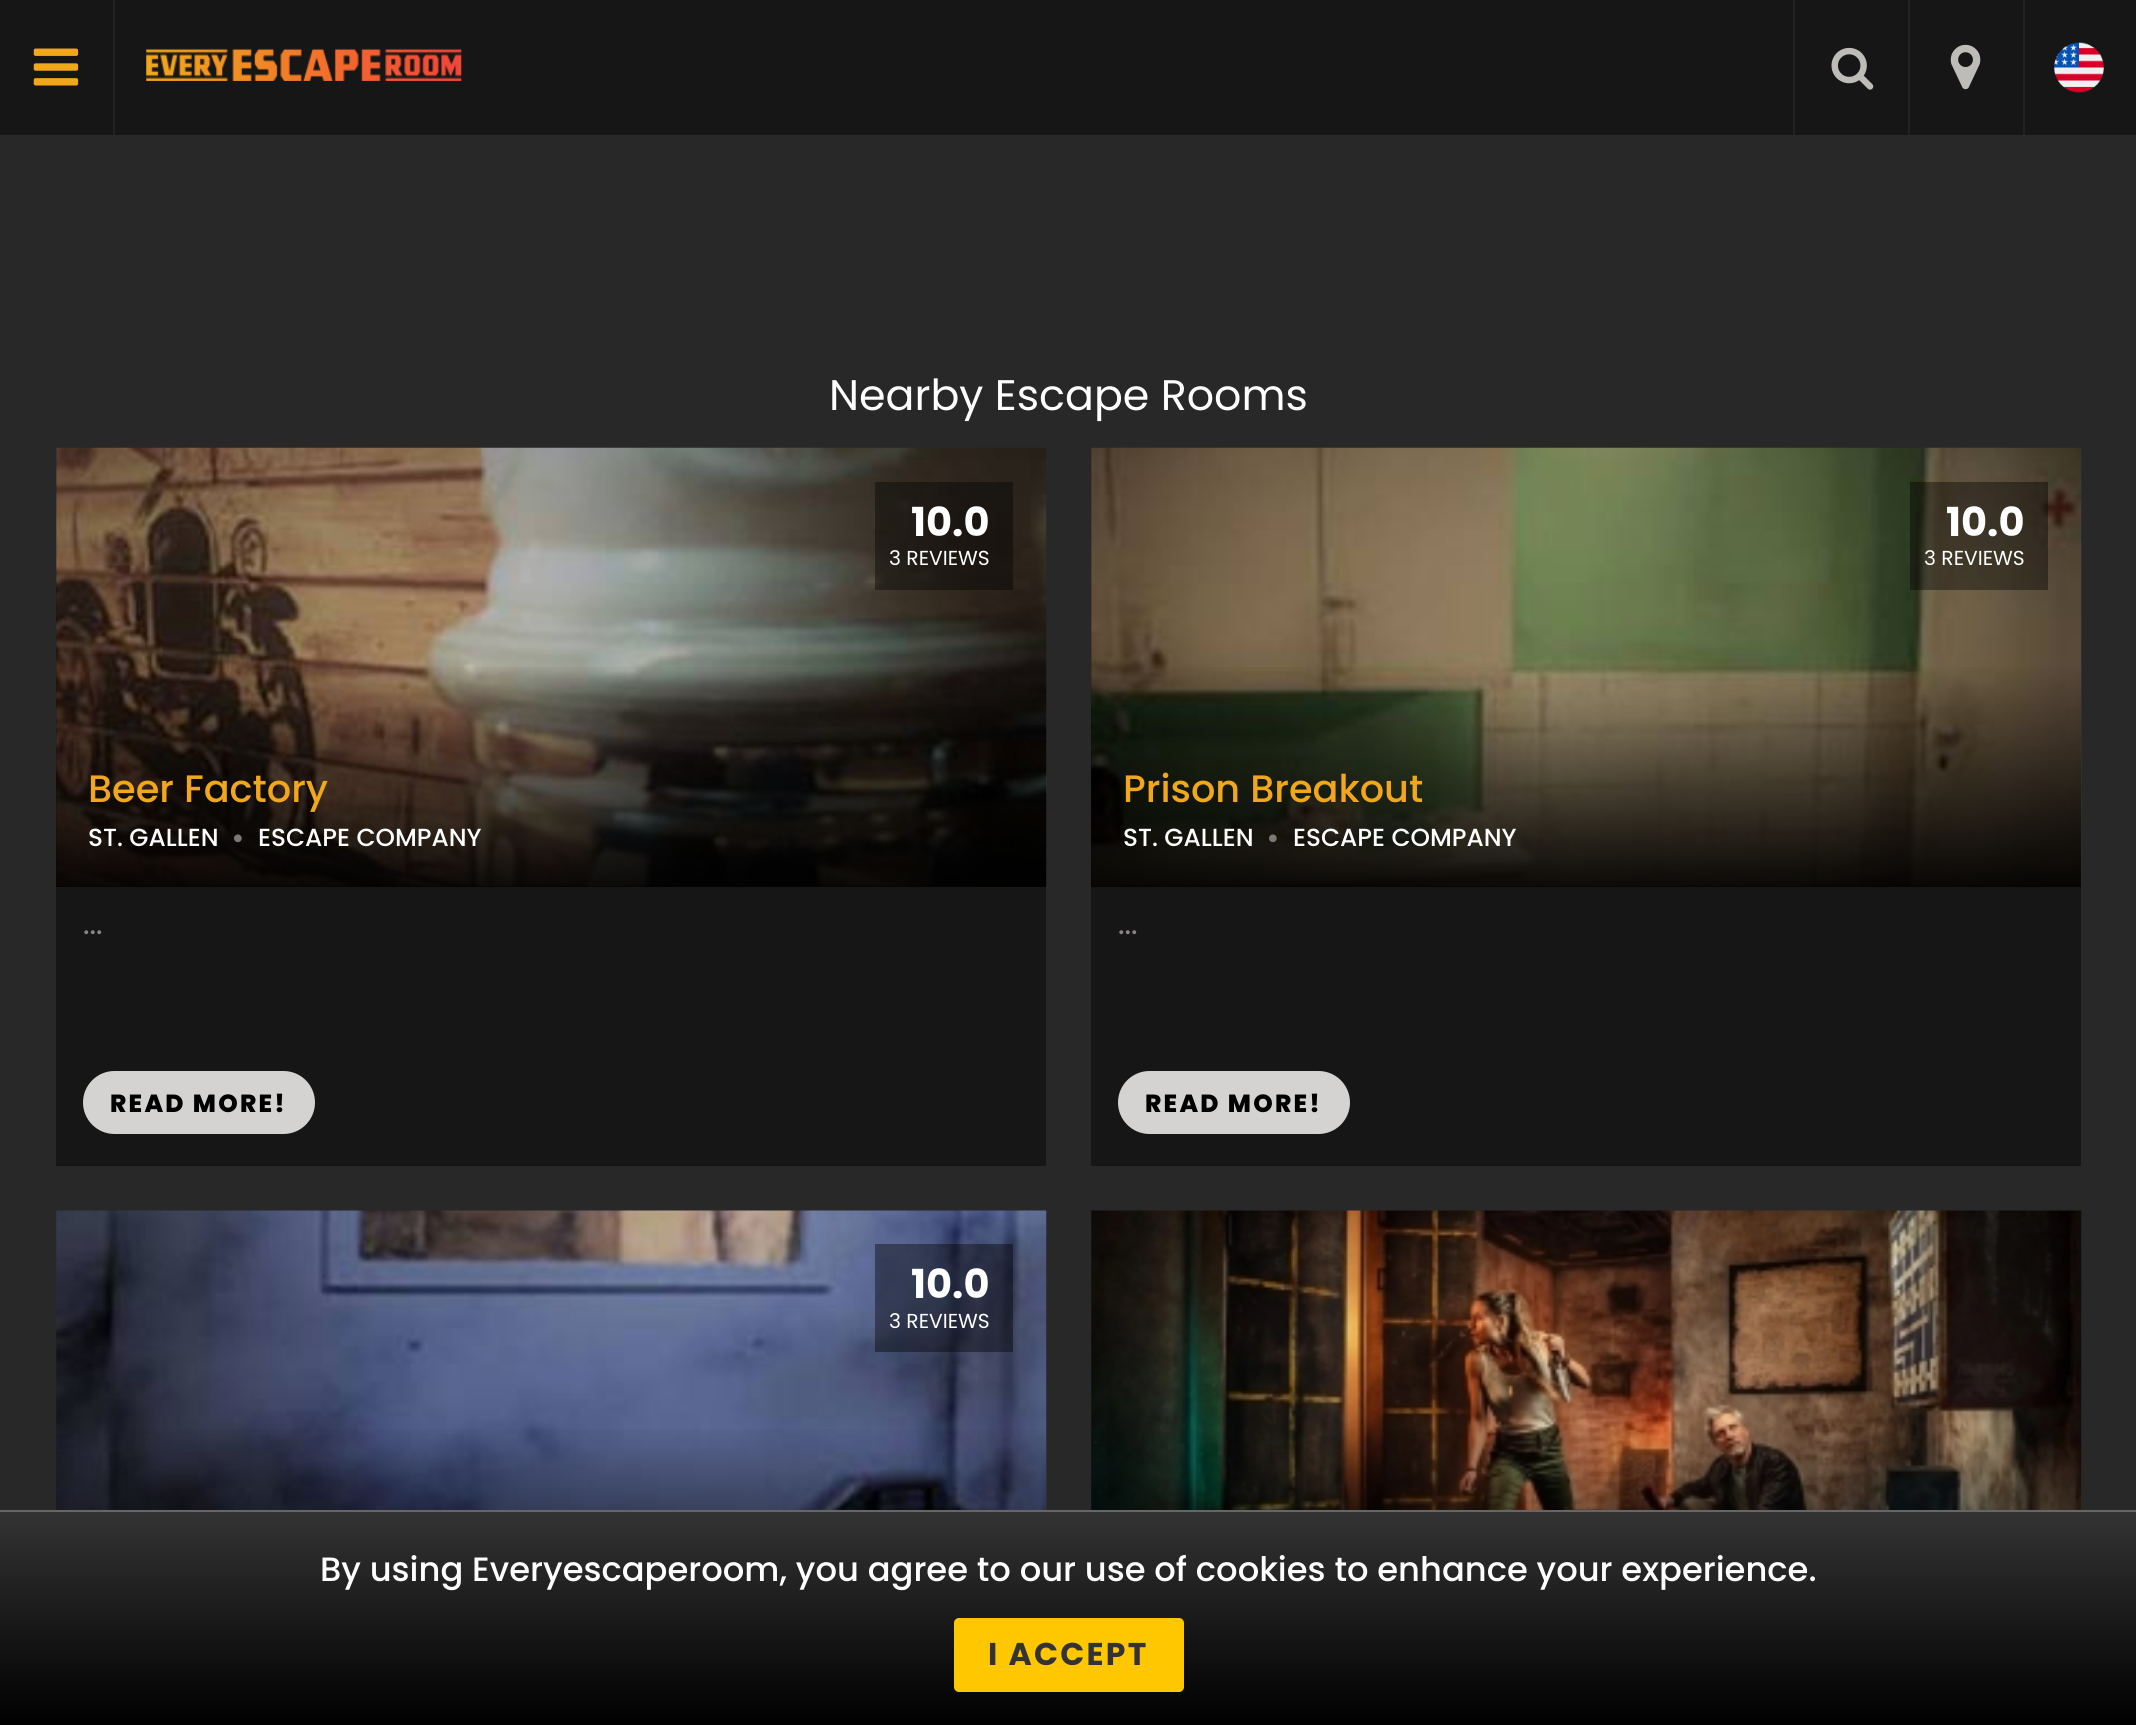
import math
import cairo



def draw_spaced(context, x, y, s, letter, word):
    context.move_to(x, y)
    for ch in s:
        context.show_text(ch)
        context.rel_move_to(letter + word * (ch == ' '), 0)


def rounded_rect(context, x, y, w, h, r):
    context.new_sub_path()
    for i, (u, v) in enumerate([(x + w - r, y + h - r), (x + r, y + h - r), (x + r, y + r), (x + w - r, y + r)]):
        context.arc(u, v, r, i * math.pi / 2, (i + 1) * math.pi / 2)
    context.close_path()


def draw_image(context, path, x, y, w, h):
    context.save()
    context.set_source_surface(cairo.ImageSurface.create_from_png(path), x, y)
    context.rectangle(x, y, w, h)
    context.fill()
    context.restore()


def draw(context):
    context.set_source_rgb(40 / 255, 40 / 255, 40 / 255)
    context.paint()
    context.set_source_rgb(22 / 255, 22 / 255, 22 / 255)
    context.rectangle(0, 0, 2136, 135)
    context.fill()
    context.set_source_rgb(34 / 255, 34 / 255, 34 / 255)
    context.rectangle(113, 0, 2, 135)
    context.fill()
    draw_image(context, "images/1.png", 33, 48, 46, 38)
    draw_image(context, "images/2.png", 146, 48, 316, 33)
    context.rectangle(1793, 0, 2, 135)
    context.fill()
    draw_image(context, "images/3.png", 1831, 47, 43, 43)
    context.rectangle(1908, 0, 2, 135)
    context.fill()
    draw_image(context, "images/4.png", 1950, 44, 31, 46)
    context.rectangle(2023, 0, 2, 135)
    context.fill()
    draw_image(context, "images/5.png", 2054, 42, 50, 51)
    context.set_source_rgb(22 / 255, 22 / 255, 22 / 255)
    context.rectangle(56, 448, 990, 718)
    context.fill()
    draw_image(context, "images/6.png", 56, 447, 991, 440)
    context.set_source_rgba(0, 0, 0, 0.4)
    context.rectangle(875, 482, 138, 108)
    context.fill()
    gradient = cairo.LinearGradient(551, 662, 551, 887)
    gradient.add_color_stop_rgba(0, 0, 0, 0, 0)
    gradient.add_color_stop_rgba(1, 0, 0, 0, 0.9)
    context.set_source(gradient)
    context.rectangle(56, 667, 990, 220)
    context.fill()
    draw_image(context, "images/7.png", 234, 834, 8, 9)
    context.set_source_rgb(212 / 255, 211 / 255, 210 / 255)
    rounded_rect(context, 83, 1071, 232, 63, 31.5)
    context.fill()
    context.set_source_rgb(22 / 255, 22 / 255, 22 / 255)
    context.rectangle(1091, 448, 990, 718)
    context.fill()
    draw_image(context, "images/8.png", 1091, 447, 991, 440)
    context.set_source_rgba(0, 0, 0, 0.4)
    context.rectangle(1910, 482, 138, 108)
    context.fill()
    gradient = cairo.LinearGradient(1586, 662, 1586, 887)
    gradient.add_color_stop_rgba(0, 0, 0, 0, 0)
    gradient.add_color_stop_rgba(1, 0, 0, 0, 0.9)
    context.set_source(gradient)
    context.rectangle(1091, 667, 990, 220)
    context.fill()
    draw_image(context, "images/9.png", 1269, 834, 8, 9)
    context.set_source_rgb(212 / 255, 211 / 255, 210 / 255)
    rounded_rect(context, 1118, 1071, 232, 63, 31.5)
    context.fill()
    draw_image(context, "images/10.png", 56, 1210, 991, 300)
    context.set_source_rgba(0, 0, 0, 0.4)
    context.rectangle(875, 1244, 138, 108)
    context.fill()
    gradient = cairo.LinearGradient(551, 1424, 551, 1649)
    gradient.add_color_stop_rgba(0, 0, 0, 0, 0)
    gradient.add_color_stop_rgba(1, 0, 0, 0, 0.9)
    context.set_source(gradient)
    context.rectangle(56, 1429, 990, 81)
    context.fill()
    draw_image(context, "images/11.png", 1091, 1210, 991, 300)
    gradient = cairo.LinearGradient(1586, 1424, 1586, 1649)
    gradient.add_color_stop_rgba(0, 0, 0, 0, 0)
    gradient.add_color_stop_rgba(1, 0, 0, 0, 0.9)
    context.set_source(gradient)
    context.rectangle(1091, 1429, 990, 81)
    context.fill()
    gradient = cairo.LinearGradient(1069, 1512, 1069, 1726)
    gradient.add_color_stop_rgba(0, 51 / 255, 51 / 255, 51 / 255, 1)
    gradient.add_color_stop_rgba(1, 0, 0, 0, 1)
    context.set_source(gradient)
    context.rectangle(0, 1512, 2136, 213)
    context.fill()
    context.set_source_rgb(102 / 255, 102 / 255, 102 / 255)
    context.rectangle(0, 1510, 2136, 2)
    context.fill()
    context.set_source_rgb(254 / 255, 199 / 255, 0)
    rounded_rect(context, 954, 1618, 230, 74, 5)
    context.fill()
    context.select_font_face("Poppins")
    context.set_font_size(42.75)
    context.set_source_rgb(1, 1, 1)
    context.move_to(829, 410)
    context.show_text("Nearby Escape Rooms")
    context.select_font_face("Poppins", cairo.FontSlant.NORMAL, cairo.FontWeight.BOLD)
    context.set_font_size(40)
    context.move_to(911, 536)
    context.show_text("10.0")
    context.select_font_face("Poppins")
    context.set_font_size(20.25)
    context.move_to(889, 565)
    context.show_text("3 REVIEWS")
    context.select_font_face("Poppins Medium")
    context.set_font_size(38.25)
    context.set_source_rgb(241 / 255, 167 / 255, 27 / 255)
    context.move_to(88, 802)
    context.show_text("Beer Factory")
    context.set_font_size(24.75)
    context.set_source_rgb(1, 1, 1)
    context.move_to(88, 846)
    context.show_text("ST. GALLEN")
    context.move_to(258, 846)
    context.show_text("ESCAPE COMPANY")
    context.set_font_size(27)
    context.set_source_rgb(138 / 255, 135 / 255, 129 / 255)
    context.move_to(83, 934)
    context.show_text("...")
    context.select_font_face("Poppins ExtraBold")
    context.set_font_size(24.75)
    context.set_source_rgb(0, 0, 0)
    draw_spaced(context, 110, 1112, "READ MORE!", 2.25, 0)
    context.select_font_face("Poppins", cairo.FontSlant.NORMAL, cairo.FontWeight.BOLD)
    context.set_font_size(40)
    context.set_source_rgb(1, 1, 1)
    context.move_to(1946, 536)
    context.show_text("10.0")
    context.select_font_face("Poppins")
    context.set_font_size(20.25)
    context.move_to(1924, 565)
    context.show_text("3 REVIEWS")
    context.select_font_face("Poppins Medium")
    context.set_font_size(38.25)
    context.set_source_rgb(241 / 255, 167 / 255, 27 / 255)
    context.move_to(1123, 802)
    context.show_text("Prison Breakout")
    context.set_font_size(24.75)
    context.set_source_rgb(1, 1, 1)
    context.move_to(1123, 846)
    context.show_text("ST. GALLEN")
    context.move_to(1293, 846)
    context.show_text("ESCAPE COMPANY")
    context.set_font_size(27)
    context.set_source_rgb(138 / 255, 135 / 255, 129 / 255)
    context.move_to(1118, 934)
    context.show_text("...")
    context.select_font_face("Poppins ExtraBold")
    context.set_font_size(24.75)
    context.set_source_rgb(0, 0, 0)
    draw_spaced(context, 1145, 1112, "READ MORE!", 2.25, 0)
    context.select_font_face("Poppins", cairo.FontSlant.NORMAL, cairo.FontWeight.BOLD)
    context.set_font_size(40)
    context.set_source_rgb(1, 1, 1)
    context.move_to(911, 1298)
    context.show_text("10.0")
    context.select_font_face("Poppins")
    context.set_font_size(20.25)
    context.move_to(889, 1328)
    context.show_text("3 REVIEWS")
    context.select_font_face("Poppins Medium")
    context.set_font_size(33.75)
    context.move_to(320, 1581)
    context.show_text("By using Everyescaperoom, you agree to our use of cookies to enhance your experience.")
    context.select_font_face("Poppins", cairo.FontSlant.NORMAL, cairo.FontWeight.BOLD)
    context.set_font_size(31.5)
    context.set_source_rgb(51 / 255, 51 / 255, 51 / 255)
    draw_spaced(context, 988, 1665, "I ACCEPT", 2.25, 0)


surface = cairo.ImageSurface(cairo.Format.RGB24, 2136, 1725)
context = cairo.Context(surface)
options = cairo.FontOptions()
options.set_hint_metrics(cairo.HintMetrics.OFF)
options.set_hint_style(cairo.HintStyle.NONE)
context.set_font_options(options)
context.set_miter_limit(4)
draw(context)
surface.write_to_png("out.png")
